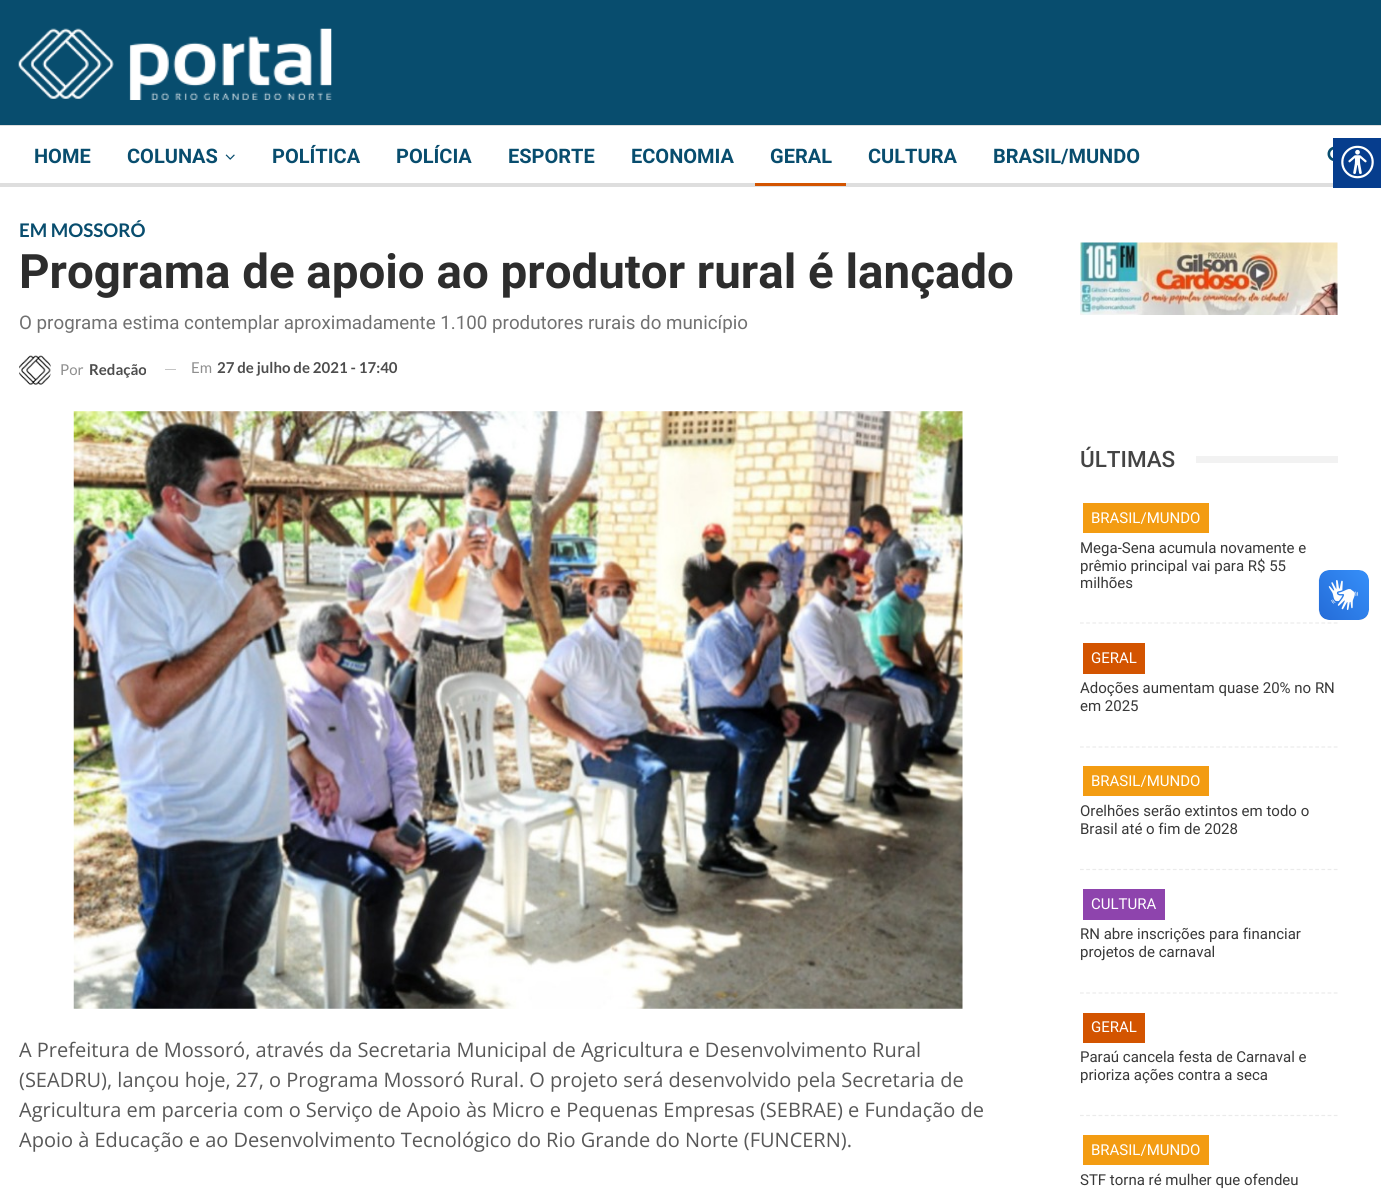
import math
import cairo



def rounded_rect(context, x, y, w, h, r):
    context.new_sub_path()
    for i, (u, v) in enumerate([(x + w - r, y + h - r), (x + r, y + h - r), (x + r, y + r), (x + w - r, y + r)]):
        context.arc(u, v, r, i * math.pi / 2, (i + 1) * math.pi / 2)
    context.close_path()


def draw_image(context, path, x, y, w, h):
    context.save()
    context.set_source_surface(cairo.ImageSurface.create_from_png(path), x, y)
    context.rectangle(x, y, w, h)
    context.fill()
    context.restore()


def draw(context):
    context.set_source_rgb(1, 1, 1)
    context.paint()
    context.set_source_rgb(8 / 255, 77 / 255, 110 / 255)
    context.rectangle(0, 0, 1381, 125)
    context.fill()
    draw_image(context, "images/1.png", 18, 28, 314, 72)
    context.set_source_rgb(222 / 255, 222 / 255, 222 / 255)
    context.rectangle(0, 125, 1381, 1)
    context.fill()
    context.rectangle(0, 183, 1333, 4)
    context.fill()
    draw_image(context, "images/2.png", 225, 154, 10, 6)
    context.set_source_rgb(211 / 255, 84 / 255, 0)
    context.rectangle(755, 183, 91, 3)
    context.fill()
    draw_image(context, "images/3.png", 1327, 146, 6, 15)
    draw_image(context, "images/4.png", 19, 355, 32, 30)
    context.set_source_rgb(196 / 255, 196 / 255, 196 / 255)
    context.rectangle(165, 369, 11, 1)
    context.fill()
    draw_image(context, "images/5.png", 73, 411, 890, 598)
    draw_image(context, "images/6.png", 1080, 242, 258, 73)
    context.set_source_rgb(242 / 255, 242 / 255, 242 / 255)
    context.rectangle(1196, 456, 142, 7)
    context.fill()
    context.new_path()
    context.move_to(1080, 623)
    context.line_to(1337.5, 623)
    context.set_source_rgb(235 / 255, 235 / 255, 235 / 255)
    context.set_line_width(1.2)
    context.set_dash([3.75, 2.44])
    context.stroke()
    context.set_source_rgb(243 / 255, 156 / 255, 18 / 255)
    context.rectangle(1083, 503, 126, 30)
    context.fill()
    context.new_path()
    context.move_to(1080, 747)
    context.line_to(1337.5, 747)
    context.set_source_rgb(235 / 255, 235 / 255, 235 / 255)
    context.stroke()
    context.set_source_rgb(211 / 255, 84 / 255, 0)
    context.rectangle(1083, 643, 62, 31)
    context.fill()
    context.new_path()
    context.move_to(1080, 869.5)
    context.line_to(1337.5, 869.5)
    context.set_source_rgb(235 / 255, 235 / 255, 235 / 255)
    context.stroke()
    context.set_source_rgb(243 / 255, 156 / 255, 18 / 255)
    context.rectangle(1083, 766, 126, 30)
    context.fill()
    context.new_path()
    context.move_to(1080, 993)
    context.line_to(1337.5, 993)
    context.set_source_rgb(235 / 255, 235 / 255, 235 / 255)
    context.stroke()
    context.set_source_rgb(142 / 255, 68 / 255, 173 / 255)
    context.rectangle(1083, 889, 82, 31)
    context.fill()
    context.new_path()
    context.move_to(1080, 1115.5)
    context.line_to(1337.5, 1115.5)
    context.set_source_rgb(235 / 255, 235 / 255, 235 / 255)
    context.stroke()
    context.set_source_rgb(211 / 255, 84 / 255, 0)
    context.rectangle(1083, 1013, 62, 30)
    context.fill()
    context.set_source_rgb(243 / 255, 156 / 255, 18 / 255)
    context.rectangle(1083, 1135, 126, 30)
    context.fill()
    context.set_source_rgb(6 / 255, 61 / 255, 141 / 255)
    context.rectangle(1333, 138, 48, 50)
    context.fill()
    draw_image(context, "images/7.png", 1341, 145, 33, 34)
    draw_image(context, "images/8.png", 1318, 570, 51, 50)
    context.set_source_rgb(233 / 255, 235 / 255, 238 / 255)
    rounded_rect(context, 1319, 570, 50, 50, 10)
    context.fill()
    draw_image(context, "images/9.png", 1319, 570, 50, 50)
    context.select_font_face("Roboto", cairo.FontSlant.NORMAL, cairo.FontWeight.BOLD)
    context.set_font_size(20)
    context.set_source_rgb(8 / 255, 77 / 255, 110 / 255)
    context.move_to(34, 163)
    context.show_text("HOME")
    context.move_to(127, 163)
    context.show_text("COLUNAS")
    context.move_to(272, 163)
    context.show_text("POLÍTICA")
    context.move_to(396, 163)
    context.show_text("POLÍCIA")
    context.move_to(508, 163)
    context.show_text("ESPORTE")
    context.move_to(631, 163)
    context.show_text("ECONOMIA")
    context.move_to(770, 163)
    context.show_text("GERAL")
    context.move_to(868, 163)
    context.show_text("CULTURA")
    context.move_to(993, 163)
    context.show_text("BRASIL/MUNDO")
    context.select_font_face("Lato", cairo.FontSlant.NORMAL, cairo.FontWeight.BOLD)
    context.set_font_size(18.75)
    context.move_to(19, 237)
    context.show_text("EM MOSSORÓ")
    context.select_font_face("Roboto", cairo.FontSlant.NORMAL, cairo.FontWeight.BOLD)
    context.set_font_size(47.5)
    context.set_source_rgb(45 / 255, 45 / 255, 45 / 255)
    context.move_to(19, 288)
    context.show_text("Programa de apoio ao produtor rural é lançado")
    context.select_font_face("Roboto")
    context.set_font_size(18.75)
    context.set_source_rgb(113 / 255, 113 / 255, 113 / 255)
    context.move_to(19, 329)
    context.show_text("O programa estima contemplar aproximadamente 1.100 produtores rurais do município")
    context.select_font_face("Lato")
    context.set_font_size(15)
    context.set_source_rgb(143 / 255, 143 / 255, 143 / 255)
    context.move_to(60, 375)
    context.show_text("Por")
    context.save()
    context.rectangle(60, 354, 86, 32)
    context.clip()
    context.select_font_face("Lato", cairo.FontSlant.NORMAL, cairo.FontWeight.BOLD)
    context.set_source_rgb(77 / 255, 77 / 255, 77 / 255)
    context.move_to(89, 375)
    context.show_text("Redação")
    context.restore()
    context.move_to(191, 373)
    context.show_text("Em")
    context.select_font_face("Lato", cairo.FontSlant.NORMAL, cairo.FontWeight.BOLD)
    context.set_source_rgb(77 / 255, 77 / 255, 77 / 255)
    context.move_to(217, 373)
    context.show_text("27 de julho de 2021 - 17:40")
    context.select_font_face("Open Sans")
    context.set_font_size(20)
    context.set_source_rgb(88 / 255, 88 / 255, 88 / 255)
    context.move_to(19, 1057)
    context.show_text("A Prefeitura de Mossoró, através da Secretaria Municipal de Agricultura e Desenvolvimento Rural")
    context.move_to(19, 1087)
    context.show_text("(SEADRU), lançou hoje, 27, o Programa Mossoró Rural. O projeto será desenvolvido pela Secretaria de")
    context.move_to(19, 1117)
    context.show_text("Agricultura em parceria com o Serviço de Apoio às Micro e Pequenas Empresas (SEBRAE) e Fundação de")
    context.move_to(19, 1147)
    context.show_text("Apoio à Educação e ao Desenvolvimento Tecnológico do Rio Grande do Norte (FUNCERN).")
    context.select_font_face("Roboto Medium")
    context.set_font_size(22.5)
    context.set_source_rgb(68 / 255, 68 / 255, 68 / 255)
    context.move_to(1080, 467)
    context.show_text("ÚLTIMAS")
    context.select_font_face("Roboto")
    context.set_font_size(15)
    context.set_source_rgb(1, 1, 1)
    context.move_to(1091, 523)
    context.show_text("BRASIL/MUNDO")
    context.set_source_rgb(56 / 255, 56 / 255, 56 / 255)
    context.move_to(1080, 553)
    context.show_text("Mega-Sena acumula novamente e")
    context.move_to(1080, 571)
    context.show_text("prêmio principal vai para R$ 55")
    context.move_to(1080, 588)
    context.show_text("milhões")
    context.set_source_rgb(1, 1, 1)
    context.move_to(1091, 663)
    context.show_text("GERAL")
    context.set_source_rgb(56 / 255, 56 / 255, 56 / 255)
    context.move_to(1080, 693)
    context.show_text("Adoções aumentam quase 20% no RN")
    context.move_to(1080, 711)
    context.show_text("em 2025")
    context.set_source_rgb(1, 1, 1)
    context.move_to(1091, 786)
    context.show_text("BRASIL/MUNDO")
    context.set_source_rgb(56 / 255, 56 / 255, 56 / 255)
    context.move_to(1080, 816)
    context.show_text("Orelhões serão extintos em todo o")
    context.move_to(1080, 834)
    context.show_text("Brasil até o fim de 2028")
    context.set_source_rgb(1, 1, 1)
    context.move_to(1091, 909)
    context.show_text("CULTURA")
    context.set_source_rgb(56 / 255, 56 / 255, 56 / 255)
    context.move_to(1080, 939)
    context.show_text("RN abre inscrições para financiar")
    context.move_to(1080, 957)
    context.show_text("projetos de carnaval")
    context.set_source_rgb(1, 1, 1)
    context.move_to(1091, 1032)
    context.show_text("GERAL")
    context.set_source_rgb(56 / 255, 56 / 255, 56 / 255)
    context.move_to(1080, 1062)
    context.show_text("Paraú cancela festa de Carnaval e")
    context.move_to(1080, 1080)
    context.show_text("prioriza ações contra a seca")
    context.set_source_rgb(1, 1, 1)
    context.move_to(1091, 1155)
    context.show_text("BRASIL/MUNDO")
    context.set_source_rgb(56 / 255, 56 / 255, 56 / 255)
    context.move_to(1080, 1185)
    context.show_text("STF torna ré mulher que ofendeu")


surface = cairo.ImageSurface(cairo.Format.RGB24, 1381, 1190)
context = cairo.Context(surface)
options = cairo.FontOptions()
options.set_hint_metrics(cairo.HintMetrics.OFF)
options.set_hint_style(cairo.HintStyle.NONE)
context.set_font_options(options)
context.set_miter_limit(4)
draw(context)
surface.write_to_png("out.png")
